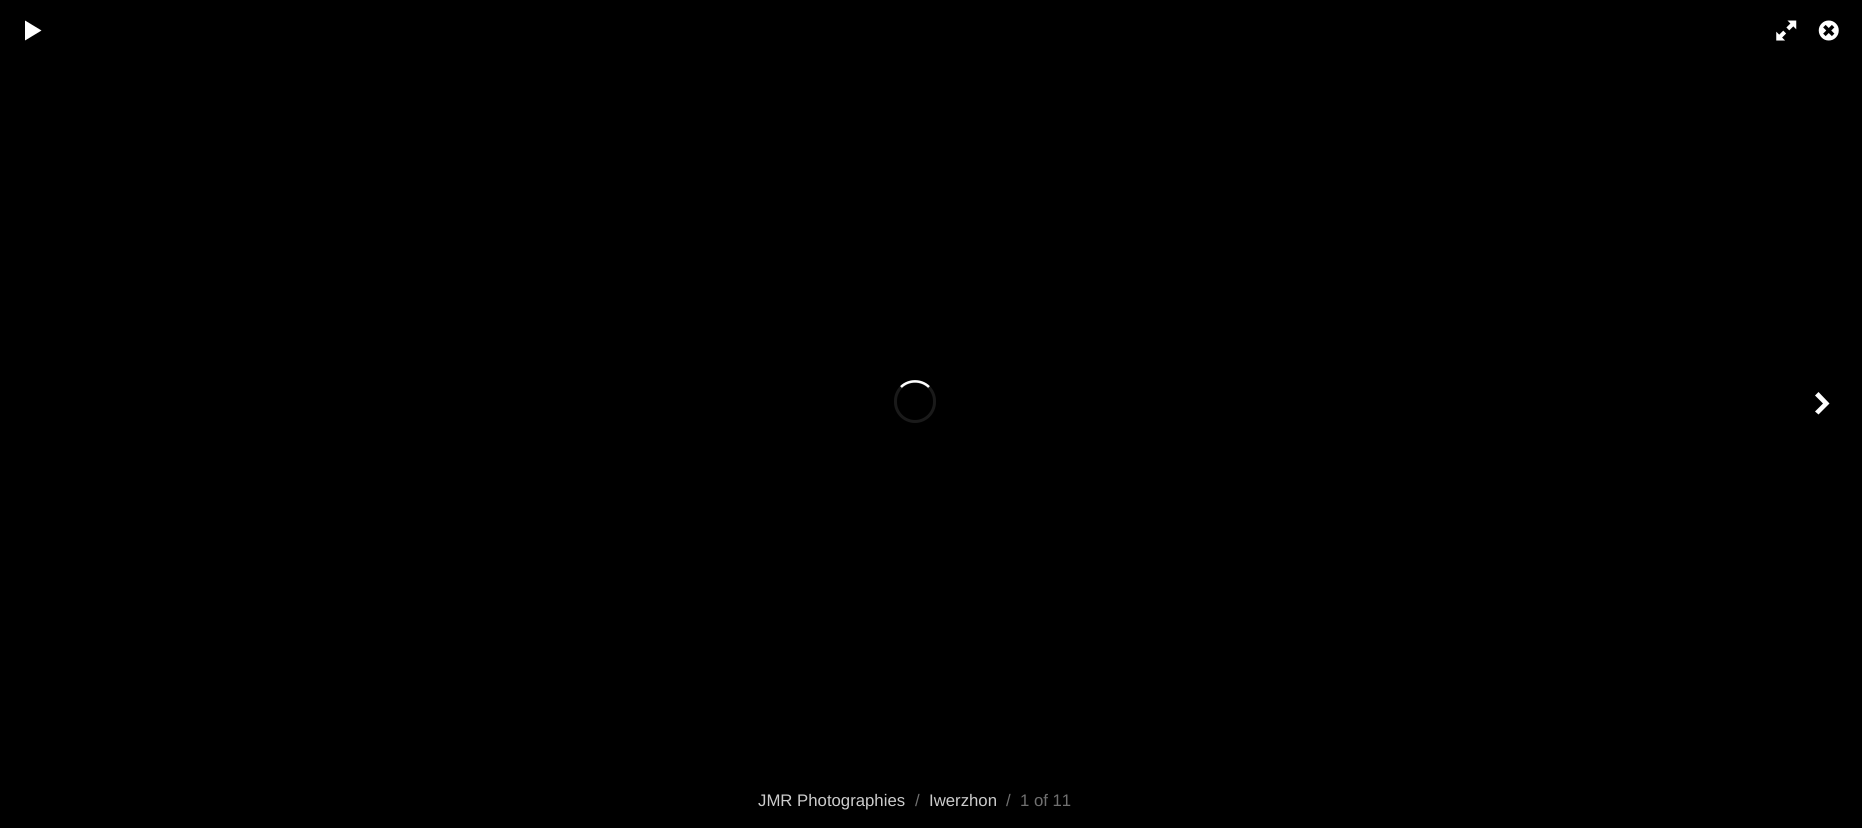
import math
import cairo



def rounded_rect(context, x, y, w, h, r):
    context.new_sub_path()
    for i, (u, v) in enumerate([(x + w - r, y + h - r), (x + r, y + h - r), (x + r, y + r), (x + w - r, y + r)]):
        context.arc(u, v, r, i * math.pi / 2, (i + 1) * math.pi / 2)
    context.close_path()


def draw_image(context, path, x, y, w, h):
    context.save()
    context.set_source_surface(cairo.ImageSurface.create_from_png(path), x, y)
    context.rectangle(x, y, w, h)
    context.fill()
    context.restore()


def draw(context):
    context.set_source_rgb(0, 0, 0)
    context.paint()
    context.set_source_rgb(1, 1, 1)
    context.new_path()
    context.move_to(25, 40.5)
    context.line_to(25, 20.5)
    context.line_to(41.5, 30.5)
    context.close_path()
    context.fill()
    draw_image(context, "images/1.png", 1776, 20, 21, 21)
    draw_image(context, "images/2.png", 1818, 20, 21, 21)
    rounded_rect(context, 895.5, 381.5, 39, 40, 19.5)
    context.set_source_rgb(26 / 255, 26 / 255, 26 / 255)
    context.set_line_width(3)
    context.stroke()
    context.new_path()
    context.move_to(901, 387)
    context.curve_to(908.5, 379.5, 921.5, 379.5, 929, 387)
    context.set_source_rgb(1, 1, 1)
    context.set_line_width(2.5)
    context.stroke()
    context.new_path()
    context.move_to(1815, 411.5)
    context.line_to(1823, 403.5)
    context.line_to(1815, 395.5)
    context.line_to(1818.5, 392)
    context.line_to(1829.5, 403.5)
    context.line_to(1818.5, 414.5)
    context.close_path()
    context.fill()
    context.select_font_face("Liberation Sans")
    context.set_font_size(16.75)
    context.set_source_rgb(204 / 255, 204 / 255, 204 / 255)
    context.move_to(758, 806)
    context.show_text("JMR Photographies")
    context.set_source_rgb(112 / 255, 112 / 255, 112 / 255)
    context.move_to(915, 806)
    context.show_text("/")
    context.set_source_rgb(204 / 255, 204 / 255, 204 / 255)
    context.move_to(929, 806)
    context.show_text("Iwerzhon")
    context.set_source_rgb(112 / 255, 112 / 255, 112 / 255)
    context.move_to(1006, 806)
    context.show_text("/  1 of 11")


surface = cairo.ImageSurface(cairo.Format.RGB24, 1862, 828)
context = cairo.Context(surface)
options = cairo.FontOptions()
options.set_hint_metrics(cairo.HintMetrics.OFF)
options.set_hint_style(cairo.HintStyle.NONE)
context.set_font_options(options)
context.set_miter_limit(4)
draw(context)
surface.write_to_png("out.png")
